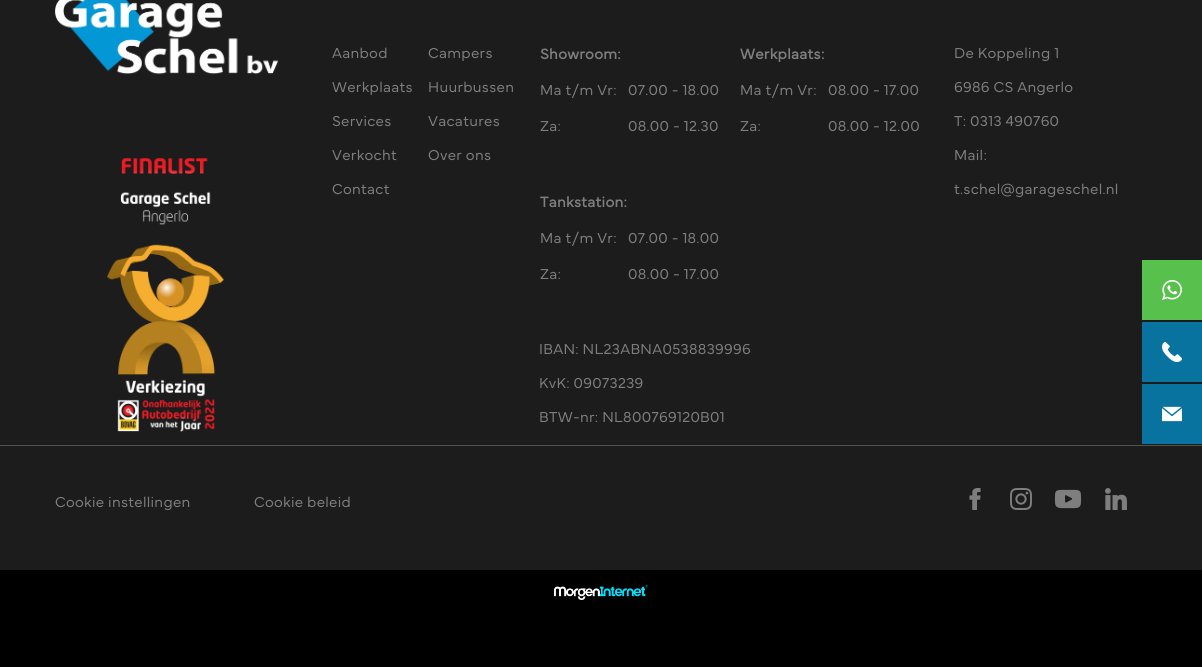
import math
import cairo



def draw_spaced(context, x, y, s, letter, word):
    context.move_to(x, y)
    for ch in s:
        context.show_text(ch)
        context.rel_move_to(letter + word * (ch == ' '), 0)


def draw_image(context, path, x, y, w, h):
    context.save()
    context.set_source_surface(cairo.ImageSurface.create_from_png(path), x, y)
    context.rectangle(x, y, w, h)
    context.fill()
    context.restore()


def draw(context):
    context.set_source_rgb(0, 0, 0)
    context.paint()
    context.set_source_rgb(28 / 255, 28 / 255, 28 / 255)
    context.rectangle(0, 0, 1202, 570)
    context.fill()
    draw_image(context, "images/1.png", 55, 0, 223, 75)
    draw_image(context, "images/2.png", 107, 157, 118, 275)
    context.set_source_rgb(81 / 255, 81 / 255, 81 / 255)
    context.rectangle(0, 445, 1202, 1)
    context.fill()
    draw_image(context, "images/3.png", 969, 488, 12, 22)
    draw_image(context, "images/4.png", 1010, 488, 22, 22)
    draw_image(context, "images/5.png", 1055, 489, 26, 20)
    draw_image(context, "images/6.png", 1105, 488, 22, 22)
    context.set_source_rgb(88 / 255, 192 / 255, 77 / 255)
    context.rectangle(1142, 260, 60, 60)
    context.fill()
    draw_image(context, "images/7.png", 1162, 280, 20, 20)
    context.set_source_rgb(9 / 255, 115 / 255, 160 / 255)
    context.rectangle(1142, 322, 60, 60)
    context.fill()
    draw_image(context, "images/8.png", 1162, 342, 20, 20)
    context.rectangle(1142, 384, 60, 60)
    context.fill()
    draw_image(context, "images/9.png", 1162, 406, 20, 16)
    draw_image(context, "images/10.png", 554, 585, 94, 15)
    context.select_font_face("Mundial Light")
    context.set_font_size(15)
    context.set_source_rgb(126 / 255, 126 / 255, 126 / 255)
    draw_spaced(context, 332, 58, "Aanbod", 0.3, 0)
    draw_spaced(context, 428, 58, "Campers", 0.3, 0)
    draw_spaced(context, 332, 92, "Werkplaats", 0.3, 0)
    draw_spaced(context, 428, 92, "Huurbussen", 0.3, 0)
    draw_spaced(context, 332, 126, "Services", 0.3, 0)
    draw_spaced(context, 428, 126, "Vacatures", 0.3, 0)
    draw_spaced(context, 332, 160, "Verkocht", 0.3, 0)
    draw_spaced(context, 428, 160, "Over ons", 0.3, 0)
    draw_spaced(context, 332, 194, "Contact", 0.3, 0)
    context.select_font_face("Mundial", cairo.FontSlant.NORMAL, cairo.FontWeight.BOLD)
    draw_spaced(context, 540, 59, "Showroom:", 0.3, 0)
    context.select_font_face("Mundial Light")
    draw_spaced(context, 540, 95, "Ma t/m Vr:", 0.3, 0)
    draw_spaced(context, 628, 95, "07.00 - 18.00", 0.3, 0)
    draw_spaced(context, 540, 131, "Za:", 0.3, 0)
    draw_spaced(context, 628, 131, "08.00 - 12.30", 0.3, 0)
    context.select_font_face("Mundial", cairo.FontSlant.NORMAL, cairo.FontWeight.BOLD)
    draw_spaced(context, 740, 59, "Werkplaats:", 0.3, 0)
    context.select_font_face("Mundial Light")
    draw_spaced(context, 740, 95, "Ma t/m Vr:", 0.3, 0)
    draw_spaced(context, 828, 95, "08.00 - 17.00", 0.3, 0)
    draw_spaced(context, 740, 131, "Za:", 0.3, 0)
    draw_spaced(context, 828, 131, "08.00 - 12.00", 0.3, 0)
    context.select_font_face("Mundial", cairo.FontSlant.NORMAL, cairo.FontWeight.BOLD)
    draw_spaced(context, 540, 207, "Tankstation:", 0.3, 0)
    context.select_font_face("Mundial Light")
    draw_spaced(context, 540, 243, "Ma t/m Vr:", 0.3, 0)
    draw_spaced(context, 628, 243, "07.00 - 18.00", 0.3, 0)
    draw_spaced(context, 540, 279, "Za:", 0.3, 0)
    draw_spaced(context, 628, 279, "08.00 - 17.00", 0.3, 0)
    draw_spaced(context, 539, 354, "IBAN: NL23ABNA0538839996", 0.3, 0)
    draw_spaced(context, 539, 388, "KvK: 09073239", 0.3, 0)
    draw_spaced(context, 539, 422, "BTW-nr: NL800769120B01", 0.3, 0)
    draw_spaced(context, 954, 58, "De Koppeling 1", 0.3, 0)
    draw_spaced(context, 954, 92, "6986 CS Angerlo", 0.3, 0)
    draw_spaced(context, 954, 126, "T: 0313 490760", 0.3, 0)
    draw_spaced(context, 954, 160, "Mail:", 0.3, 0)
    draw_spaced(context, 954, 194, "t.schel@garageschel.nl", 0.3, 0)
    draw_spaced(context, 55, 507, "Cookie instellingen", 0.3, 0)
    draw_spaced(context, 254, 507, "Cookie beleid", 0.3, 0)


surface = cairo.ImageSurface(cairo.Format.RGB24, 1202, 667)
context = cairo.Context(surface)
options = cairo.FontOptions()
options.set_hint_metrics(cairo.HintMetrics.OFF)
options.set_hint_style(cairo.HintStyle.NONE)
context.set_font_options(options)
context.set_miter_limit(4)
draw(context)
surface.write_to_png("out.png")
